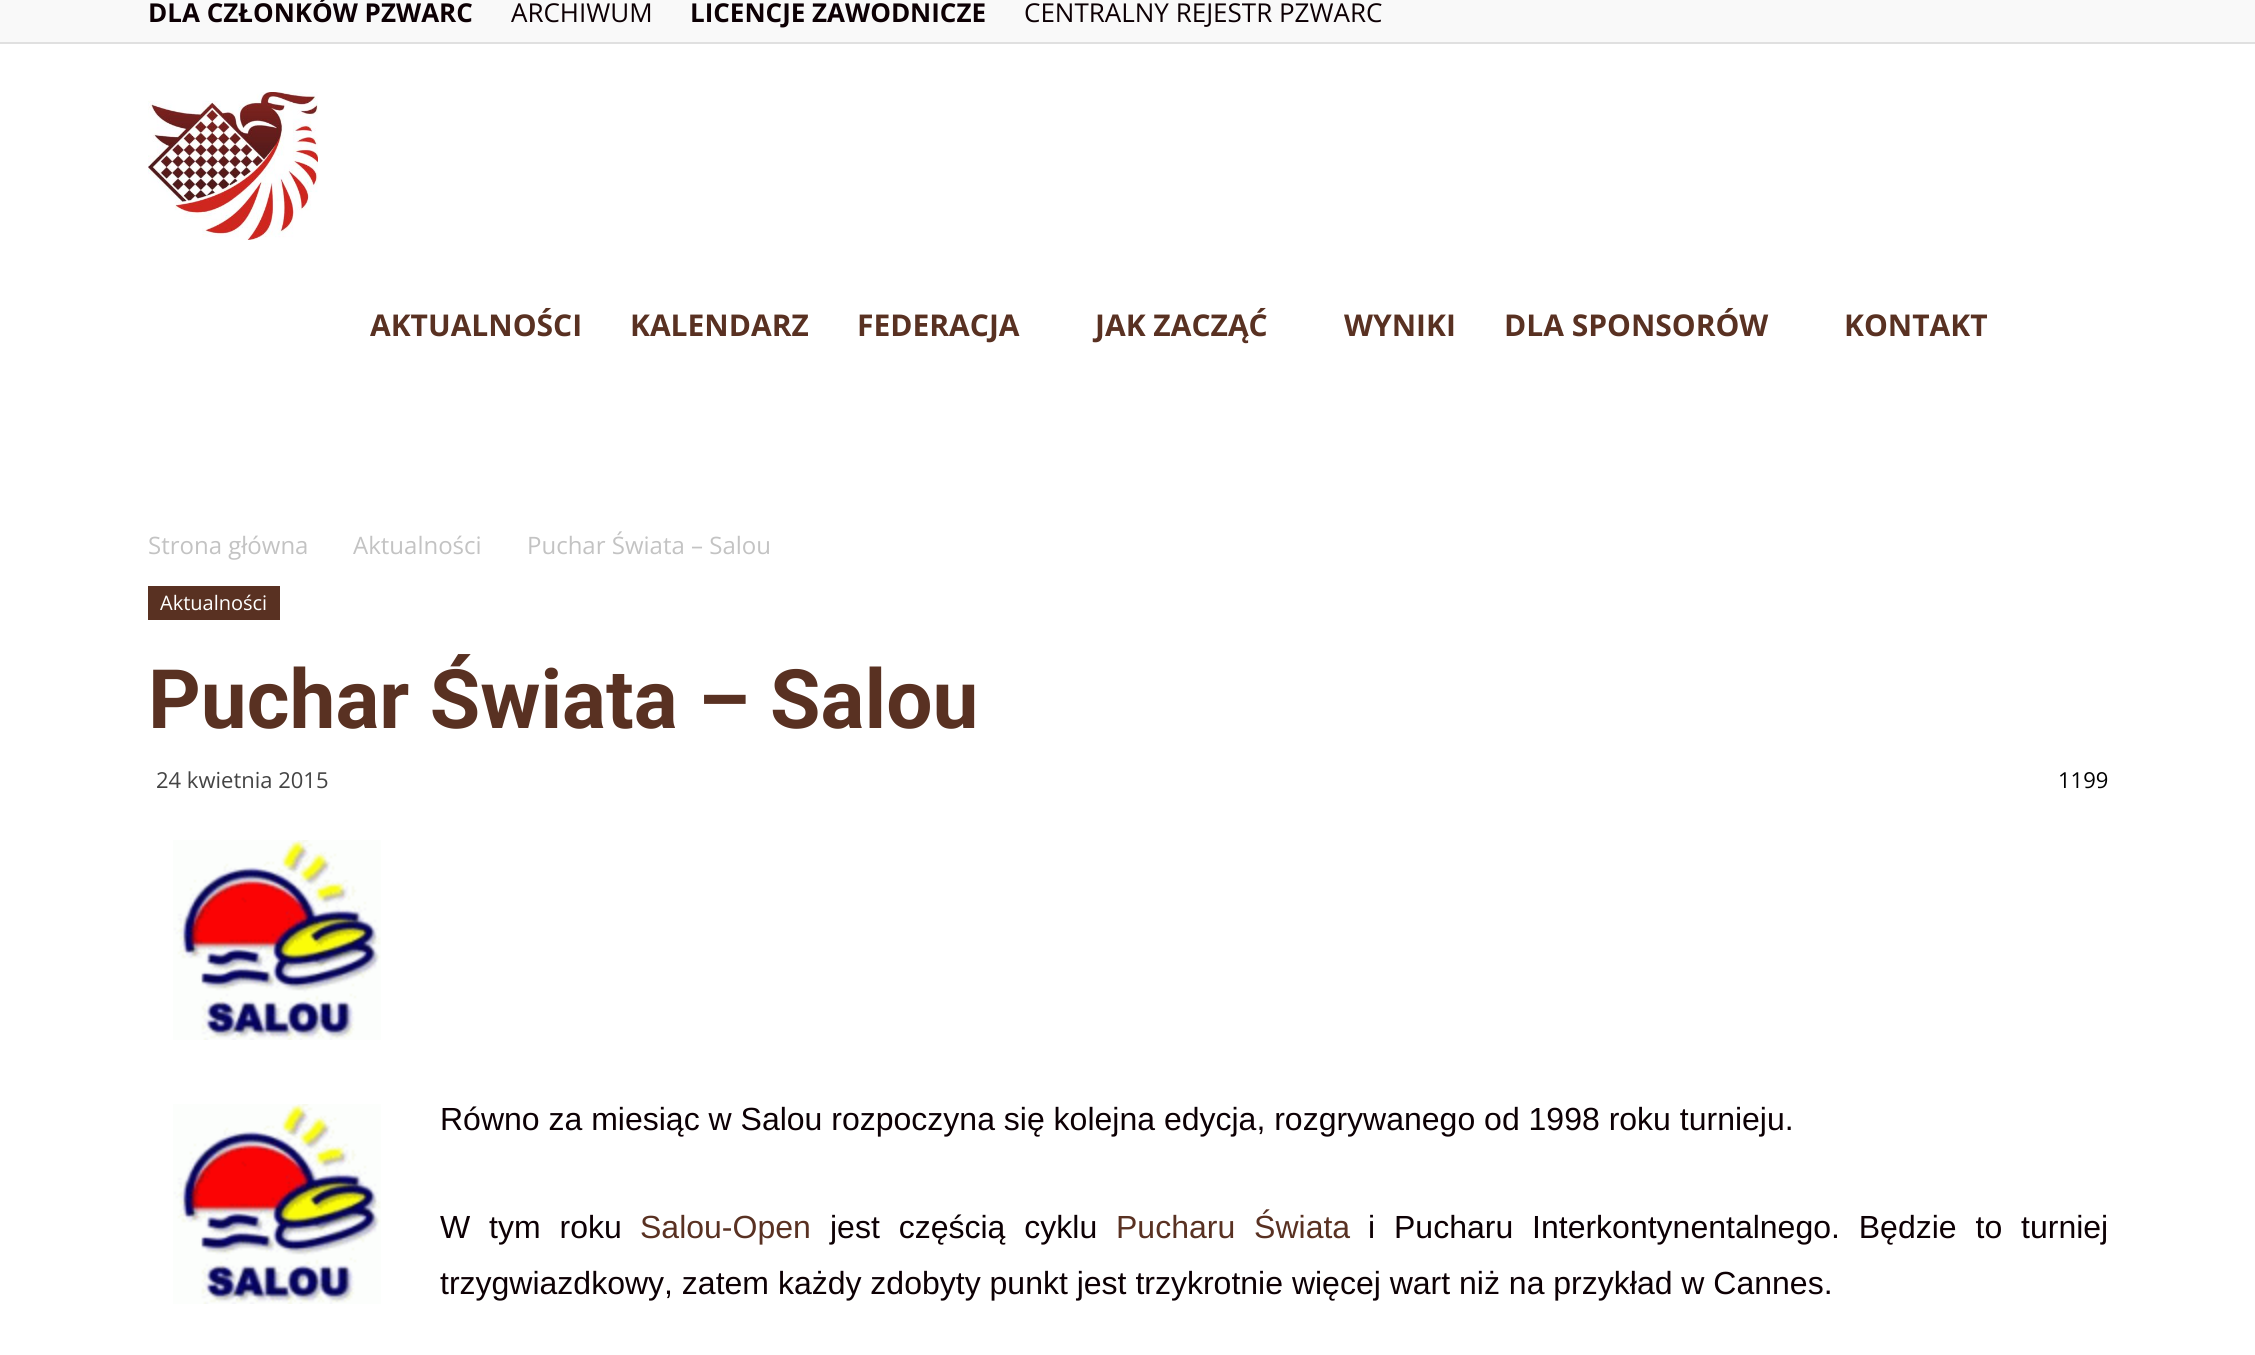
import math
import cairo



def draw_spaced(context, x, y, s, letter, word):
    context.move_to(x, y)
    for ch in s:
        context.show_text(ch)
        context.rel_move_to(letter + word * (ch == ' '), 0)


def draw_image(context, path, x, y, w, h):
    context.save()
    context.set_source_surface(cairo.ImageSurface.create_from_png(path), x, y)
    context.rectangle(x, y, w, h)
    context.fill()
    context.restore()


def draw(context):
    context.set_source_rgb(1, 1, 1)
    context.paint()
    context.set_source_rgb(249 / 255, 249 / 255, 249 / 255)
    context.rectangle(0, 0, 2255, 42)
    context.fill()
    context.set_source_rgb(224 / 255, 224 / 255, 224 / 255)
    context.rectangle(0, 42, 2255, 2)
    context.fill()
    draw_image(context, "images/1.png", 148, 92, 170, 148)
    context.set_source_rgb(89 / 255, 49 / 255, 34 / 255)
    context.rectangle(148, 586, 132, 34)
    context.fill()
    draw_image(context, "images/2.png", 173, 840, 208, 200)
    draw_image(context, "images/2.png", 173, 1104, 208, 200)
    context.select_font_face("Open Sans", cairo.FontSlant.NORMAL, cairo.FontWeight.BOLD)
    context.set_font_size(26)
    context.set_source_rgb(13 / 255, 0, 4 / 255)
    context.move_to(148, 22)
    context.show_text("DLA CZŁONKÓW PZWARC")
    context.select_font_face("Open Sans")
    context.move_to(511, 22)
    context.show_text("ARCHIWUM")
    context.select_font_face("Open Sans", cairo.FontSlant.NORMAL, cairo.FontWeight.BOLD)
    context.move_to(690, 22)
    context.show_text("LICENCJE ZAWODNICZE")
    context.select_font_face("Open Sans")
    context.move_to(1024, 22)
    context.show_text("CENTRALNY REJESTR PZWARC")
    context.select_font_face("Open Sans", cairo.FontSlant.NORMAL, cairo.FontWeight.BOLD)
    context.set_font_size(30)
    context.set_source_rgb(89 / 255, 49 / 255, 34 / 255)
    context.move_to(370, 336)
    context.show_text("AKTUALNOŚCI")
    context.move_to(630, 336)
    context.show_text("KALENDARZ")
    context.move_to(857, 336)
    context.show_text("FEDERACJA")
    context.move_to(1095, 336)
    context.show_text("JAK ZACZĄĆ")
    context.move_to(1344, 336)
    context.show_text("WYNIKI")
    context.move_to(1504, 336)
    context.show_text("DLA SPONSORÓW")
    context.move_to(1844, 336)
    context.show_text("KONTAKT")
    context.select_font_face("Open Sans")
    context.set_font_size(24)
    context.set_source_rgb(195 / 255, 195 / 255, 195 / 255)
    context.move_to(148, 554)
    context.show_text("Strona główna")
    context.move_to(353, 554)
    context.show_text("Aktualności")
    context.move_to(527, 554)
    context.show_text("Puchar Świata – Salou")
    context.set_font_size(20)
    context.set_source_rgb(1, 1, 1)
    context.move_to(160, 610)
    context.show_text("Aktualności")
    context.select_font_face("Roboto", cairo.FontSlant.NORMAL, cairo.FontWeight.BOLD)
    context.set_font_size(82)
    context.set_source_rgb(89 / 255, 49 / 255, 34 / 255)
    context.move_to(148, 728)
    context.show_text("Puchar Świata – Salou")
    context.select_font_face("Open Sans")
    context.set_font_size(22)
    context.set_source_rgb(68 / 255, 68 / 255, 68 / 255)
    context.move_to(156, 788)
    context.show_text("24 kwietnia 2015")
    context.set_source_rgb(0, 0, 0)
    context.move_to(2058, 788)
    context.show_text("1199")
    context.select_font_face("Liberation Sans")
    context.set_font_size(32)
    context.set_source_rgb(13 / 255, 0, 4 / 255)
    context.move_to(440, 1130)
    context.show_text("Równo za miesiąc w Salou rozpoczyna się kolejna edycja, rozgrywanego od 1998 roku turnieju.")
    draw_spaced(context, 440, 1238, "W tym roku", 0, 10)
    context.set_source_rgb(89 / 255, 49 / 255, 34 / 255)
    context.move_to(640, 1238)
    context.show_text("Salou-Open")
    context.set_source_rgb(13 / 255, 0, 4 / 255)
    draw_spaced(context, 830, 1238, "jest częścią cyklu", 0, 10)
    context.set_source_rgb(89 / 255, 49 / 255, 34 / 255)
    draw_spaced(context, 1116, 1238, "Pucharu Świata", 0, 10)
    context.set_source_rgb(13 / 255, 0, 4 / 255)
    draw_spaced(context, 1368, 1238, "i Pucharu Interkontynentalnego. Będzie to turniej", 0, 10)
    context.move_to(440, 1294)
    context.show_text("trzygwiazdkowy, zatem każdy zdobyty punkt jest trzykrotnie więcej wart niż na przykład w Cannes.")


surface = cairo.ImageSurface(cairo.Format.RGB24, 2255, 1355)
context = cairo.Context(surface)
options = cairo.FontOptions()
options.set_hint_metrics(cairo.HintMetrics.OFF)
options.set_hint_style(cairo.HintStyle.NONE)
context.set_font_options(options)
context.set_miter_limit(4)
draw(context)
surface.write_to_png("out.png")
